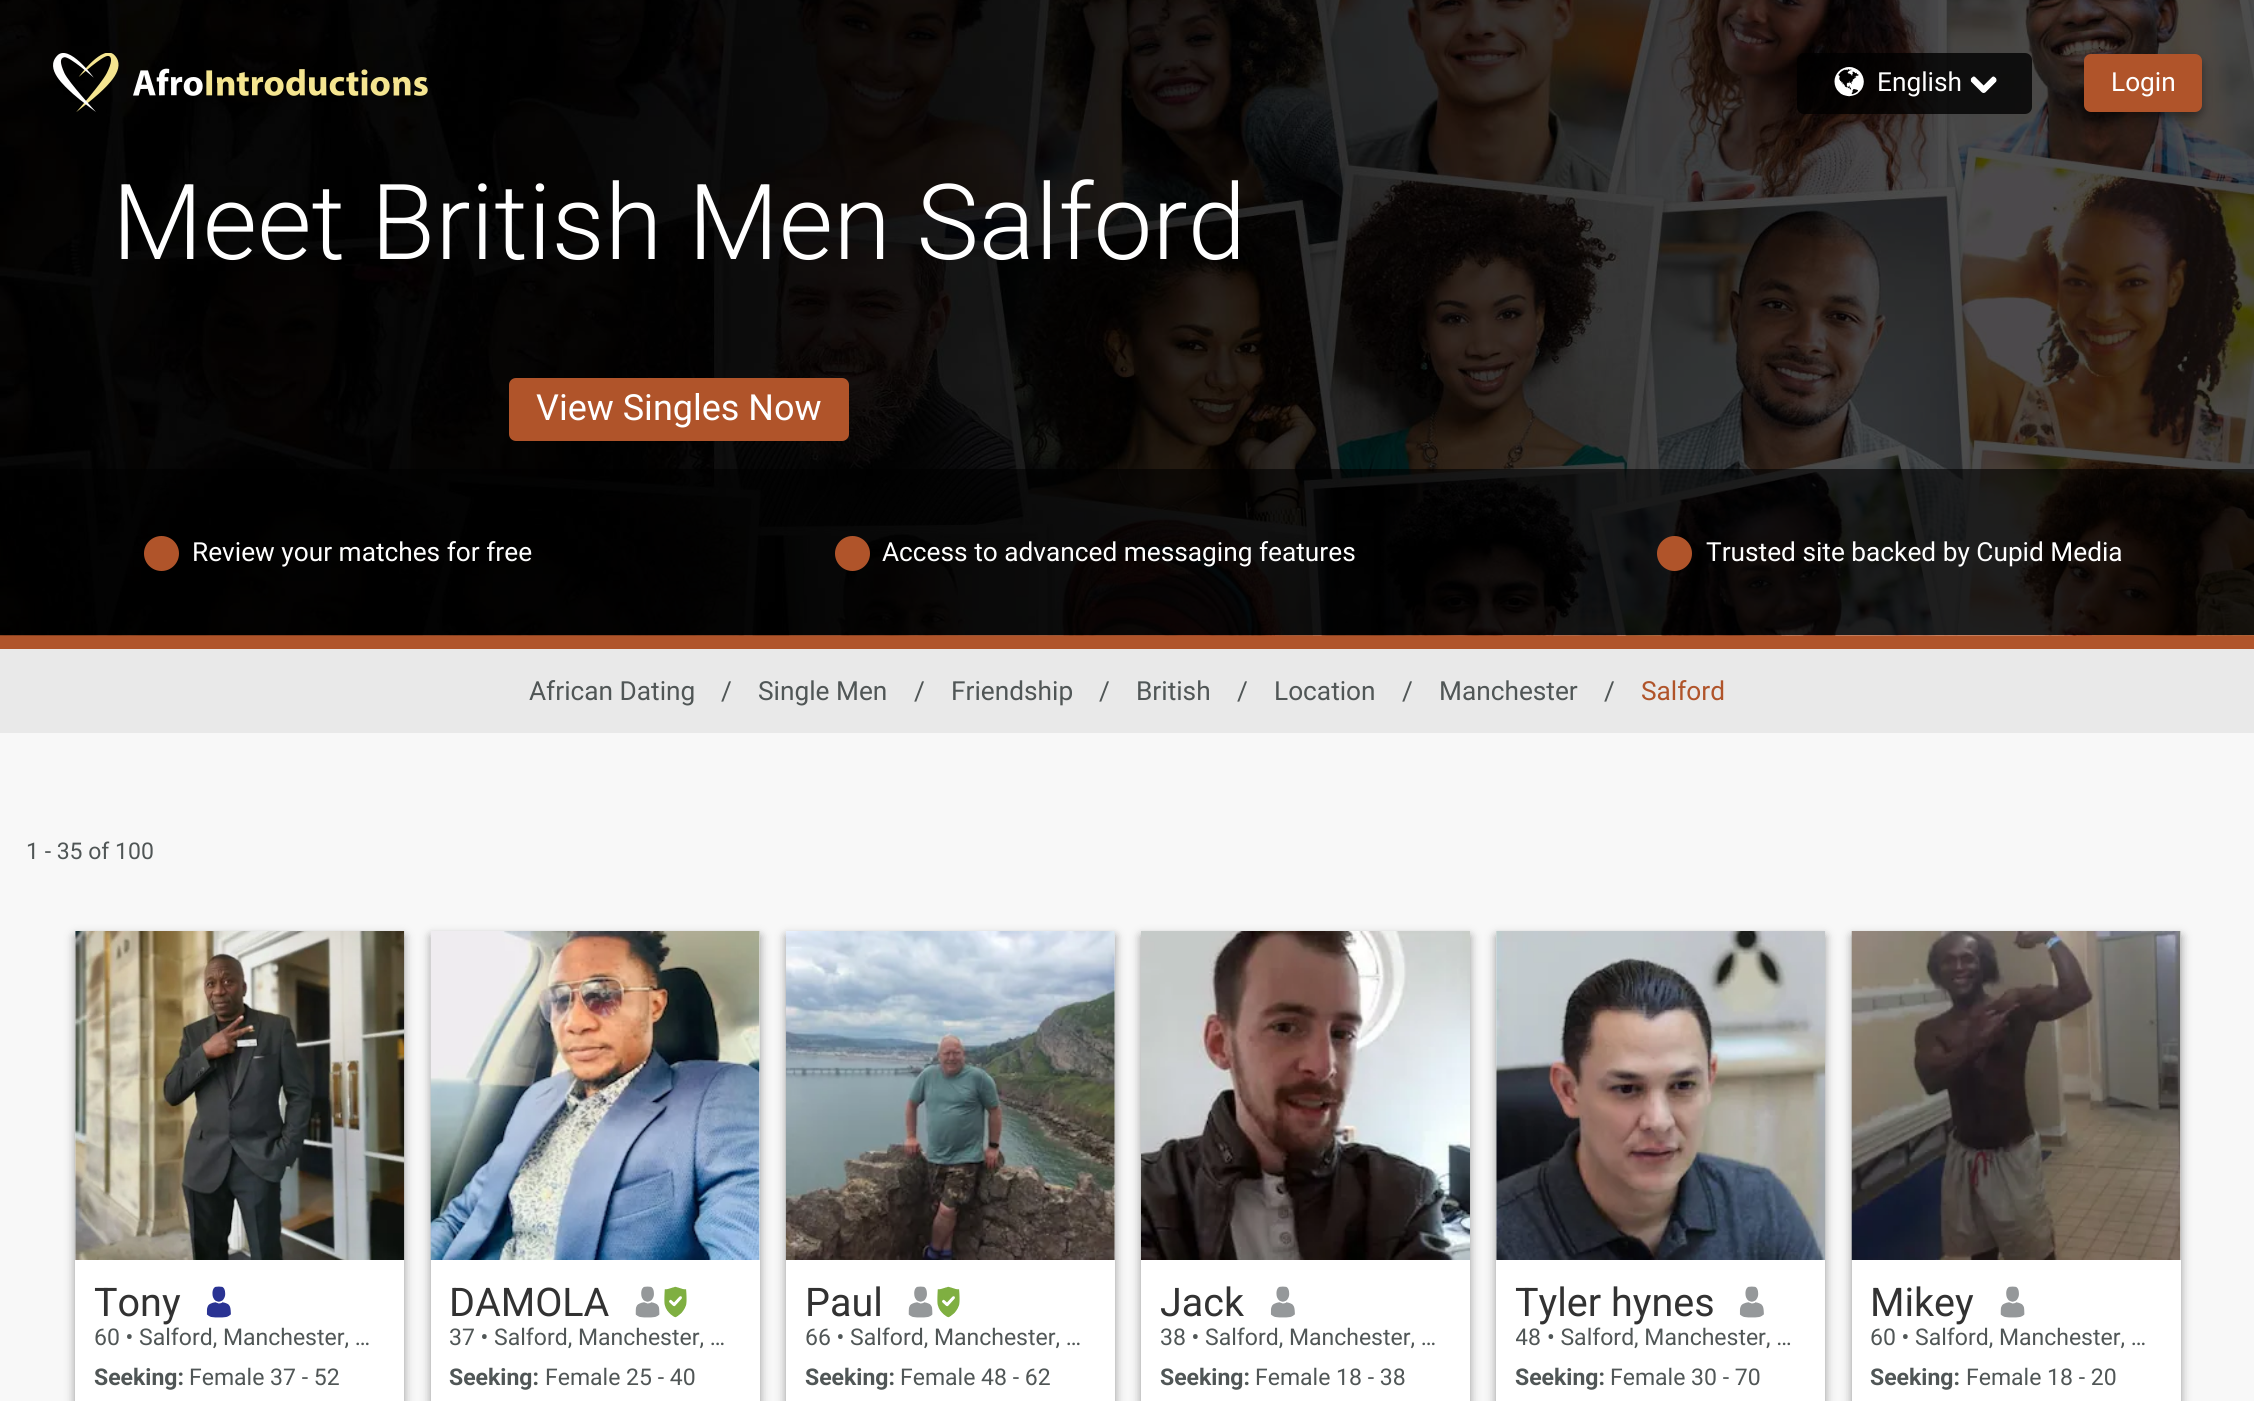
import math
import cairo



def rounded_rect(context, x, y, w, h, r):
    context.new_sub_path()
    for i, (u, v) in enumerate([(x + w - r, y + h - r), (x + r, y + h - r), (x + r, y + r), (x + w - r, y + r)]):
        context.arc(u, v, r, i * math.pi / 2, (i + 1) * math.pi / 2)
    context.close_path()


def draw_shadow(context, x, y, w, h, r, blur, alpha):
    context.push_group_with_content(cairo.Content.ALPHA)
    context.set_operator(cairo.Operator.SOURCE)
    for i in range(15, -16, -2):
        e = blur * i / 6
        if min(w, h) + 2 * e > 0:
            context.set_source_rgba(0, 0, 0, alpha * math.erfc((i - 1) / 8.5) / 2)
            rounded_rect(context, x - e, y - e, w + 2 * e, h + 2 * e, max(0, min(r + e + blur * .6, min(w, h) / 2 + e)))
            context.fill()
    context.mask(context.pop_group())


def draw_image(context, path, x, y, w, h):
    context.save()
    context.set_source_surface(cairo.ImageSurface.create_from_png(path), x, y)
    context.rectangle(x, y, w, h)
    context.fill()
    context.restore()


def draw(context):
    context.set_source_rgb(248 / 255, 248 / 255, 248 / 255)
    context.paint()
    context.set_source_rgb(176 / 255, 84 / 255, 42 / 255)
    context.rectangle(0, 635, 2254, 14)
    context.fill()
    draw_image(context, "images/5.png", 0, 0, 2254, 636)
    draw_image(context, "images/1.png", 53, 53, 66, 59)
    draw_image(context, "images/2.png", 133, 68, 295, 28)
    context.set_source_rgba(0, 0, 0, 0.8)
    rounded_rect(context, 1797, 53, 235, 61, 7)
    context.fill()
    draw_image(context, "images/3.png", 1834, 67, 30, 30)
    draw_image(context, "images/4.png", 1970, 76, 27, 17)
    context.set_source_rgb(0, 0, 0)
    draw_shadow(context, 2084, 60, 118, 57, 7, 5, 0.4)
    context.set_source_rgb(176 / 255, 84 / 255, 42 / 255)
    rounded_rect(context, 2084, 54, 118, 58, 7)
    context.fill()
    rounded_rect(context, 509, 378, 340, 63, 7)
    context.fill()
    context.set_source_rgba(0, 0, 0, 0.6)
    context.rectangle(0, 469, 2254, 166)
    context.fill()
    context.set_source_rgb(176 / 255, 84 / 255, 42 / 255)
    context.arc(161.5, 553.5, 17.5, 0, 2 * math.pi)
    context.fill()
    context.arc(852.5, 553.5, 17.5, 0, 2 * math.pi)
    context.fill()
    context.arc(1674.5, 553.5, 17.5, 0, 2 * math.pi)
    context.fill()
    context.set_source_rgb(233 / 255, 233 / 255, 233 / 255)
    context.rectangle(0, 649, 2254, 84)
    context.fill()
    context.set_source_rgb(0, 0, 0)
    draw_shadow(context, 75, 936, 329, 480, 0, 5, 0.4)
    context.set_source_rgb(1, 1, 1)
    context.rectangle(75, 1260, 329, 141)
    context.fill()
    context.set_source_rgb(224 / 255, 224 / 255, 224 / 255)
    context.rectangle(75, 931, 1, 329)
    context.fill()
    draw_image(context, "images/6.png", 75, 931, 330, 329)
    draw_image(context, "images/7.png", 206, 1286, 25, 32)
    context.set_source_rgb(0, 0, 0)
    draw_shadow(context, 431, 936, 329, 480, 0, 5, 0.4)
    context.set_source_rgb(1, 1, 1)
    context.rectangle(431, 1260, 329, 141)
    context.fill()
    context.set_source_rgb(224 / 255, 224 / 255, 224 / 255)
    context.rectangle(759, 931, 1, 329)
    context.fill()
    draw_image(context, "images/8.png", 430, 931, 330, 329)
    draw_image(context, "images/9.png", 635, 1286, 25, 32)
    draw_image(context, "images/10.png", 664, 1286, 23, 32)
    context.set_source_rgb(0, 0, 0)
    draw_shadow(context, 786, 936, 329, 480, 0, 5, 0.4)
    context.set_source_rgb(1, 1, 1)
    context.rectangle(786, 1260, 329, 141)
    context.fill()
    context.set_source_rgb(224 / 255, 224 / 255, 224 / 255)
    context.rectangle(1114, 931, 1, 329)
    context.fill()
    draw_image(context, "images/11.png", 785, 931, 330, 329)
    draw_image(context, "images/9.png", 908, 1286, 25, 32)
    draw_image(context, "images/10.png", 937, 1286, 23, 32)
    context.set_source_rgb(0, 0, 0)
    draw_shadow(context, 1141, 936, 329, 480, 0, 5, 0.4)
    context.set_source_rgb(1, 1, 1)
    context.rectangle(1141, 1260, 329, 141)
    context.fill()
    draw_image(context, "images/12.png", 1141, 931, 329, 329)
    draw_image(context, "images/13.png", 1270, 1286, 25, 32)
    context.set_source_rgb(0, 0, 0)
    draw_shadow(context, 1496, 936, 329, 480, 0, 5, 0.4)
    context.set_source_rgb(1, 1, 1)
    context.rectangle(1496, 1260, 329, 141)
    context.fill()
    context.set_source_rgb(224 / 255, 224 / 255, 224 / 255)
    context.rectangle(1496, 931, 1, 329)
    context.fill()
    draw_image(context, "images/14.png", 1496, 931, 330, 329)
    draw_image(context, "images/15.png", 1739, 1286, 25, 32)
    context.set_source_rgb(0, 0, 0)
    draw_shadow(context, 1852, 936, 329, 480, 0, 5, 0.4)
    context.set_source_rgb(1, 1, 1)
    context.rectangle(1852, 1260, 329, 141)
    context.fill()
    context.set_source_rgb(224 / 255, 224 / 255, 224 / 255)
    context.rectangle(2180, 931, 1, 329)
    context.fill()
    draw_image(context, "images/16.png", 1851, 931, 330, 329)
    draw_image(context, "images/9.png", 2000, 1286, 25, 32)
    context.select_font_face("Roboto")
    context.set_font_size(26.25)
    context.set_source_rgb(1, 1, 1)
    context.move_to(1877, 91)
    context.show_text("English")
    context.move_to(2111, 91)
    context.show_text("Login")
    context.select_font_face("Roboto Light")
    context.set_font_size(105)
    context.move_to(112, 259)
    context.show_text("Meet British Men Salford")
    context.select_font_face("Roboto")
    context.set_font_size(36)
    context.move_to(536, 420)
    context.show_text("View Singles Now")
    context.set_font_size(26.25)
    context.move_to(192, 561)
    context.show_text("Review your matches for free")
    context.move_to(882, 561)
    context.show_text("Access to advanced messaging features")
    context.move_to(1706, 561)
    context.show_text("Trusted site backed by Cupid Media")
    context.set_source_rgb(80 / 255, 86 / 255, 86 / 255)
    context.move_to(529, 700)
    context.show_text("African Dating")
    context.move_to(721, 700)
    context.show_text("/")
    context.move_to(758, 700)
    context.show_text("Single Men")
    context.move_to(914, 700)
    context.show_text("/")
    context.move_to(951, 700)
    context.show_text("Friendship")
    context.move_to(1099, 700)
    context.show_text("/")
    context.move_to(1136, 700)
    context.show_text("British")
    context.move_to(1237, 700)
    context.show_text("/")
    context.move_to(1274, 700)
    context.show_text("Location")
    context.move_to(1402, 700)
    context.show_text("/")
    context.move_to(1439, 700)
    context.show_text("Manchester")
    context.move_to(1604, 700)
    context.show_text("/")
    context.set_source_rgb(176 / 255, 84 / 255, 42 / 255)
    context.move_to(1641, 700)
    context.show_text("Salford")
    context.set_font_size(23)
    context.set_source_rgb(80 / 255, 86 / 255, 86 / 255)
    context.move_to(26, 859)
    context.show_text("1 - 35 of 100")
    context.set_font_size(39.5)
    context.set_source_rgb(50 / 255, 50 / 255, 50 / 255)
    context.move_to(94, 1316)
    context.show_text("Tony")
    context.set_font_size(23)
    context.set_source_rgb(80 / 255, 86 / 255, 86 / 255)
    context.move_to(94, 1345)
    context.show_text("60 • Salford, Manchester, …")
    context.select_font_face("Roboto", cairo.FontSlant.NORMAL, cairo.FontWeight.BOLD)
    context.move_to(94, 1385)
    context.show_text("Seeking:")
    context.select_font_face("Roboto")
    context.move_to(189, 1385)
    context.show_text("Female 37 - 52")
    context.set_font_size(39.5)
    context.set_source_rgb(50 / 255, 50 / 255, 50 / 255)
    context.move_to(449, 1316)
    context.show_text("DAMOLA")
    context.set_font_size(23)
    context.set_source_rgb(80 / 255, 86 / 255, 86 / 255)
    context.move_to(449, 1345)
    context.show_text("37 • Salford, Manchester, …")
    context.select_font_face("Roboto", cairo.FontSlant.NORMAL, cairo.FontWeight.BOLD)
    context.move_to(449, 1385)
    context.show_text("Seeking:")
    context.select_font_face("Roboto")
    context.move_to(545, 1385)
    context.show_text("Female 25 - 40")
    context.set_font_size(39.5)
    context.set_source_rgb(50 / 255, 50 / 255, 50 / 255)
    context.move_to(805, 1316)
    context.show_text("Paul")
    context.set_font_size(23)
    context.set_source_rgb(80 / 255, 86 / 255, 86 / 255)
    context.move_to(805, 1345)
    context.show_text("66 • Salford, Manchester, …")
    context.select_font_face("Roboto", cairo.FontSlant.NORMAL, cairo.FontWeight.BOLD)
    context.move_to(805, 1385)
    context.show_text("Seeking:")
    context.select_font_face("Roboto")
    context.move_to(900, 1385)
    context.show_text("Female 48 - 62")
    context.set_font_size(39.5)
    context.set_source_rgb(50 / 255, 50 / 255, 50 / 255)
    context.move_to(1160, 1316)
    context.show_text("Jack")
    context.set_font_size(23)
    context.set_source_rgb(80 / 255, 86 / 255, 86 / 255)
    context.move_to(1160, 1345)
    context.show_text("38 • Salford, Manchester, …")
    context.select_font_face("Roboto", cairo.FontSlant.NORMAL, cairo.FontWeight.BOLD)
    context.move_to(1160, 1385)
    context.show_text("Seeking:")
    context.select_font_face("Roboto")
    context.move_to(1255, 1385)
    context.show_text("Female 18 - 38")
    context.set_font_size(39.5)
    context.set_source_rgb(50 / 255, 50 / 255, 50 / 255)
    context.move_to(1515, 1316)
    context.show_text("Tyler hynes")
    context.save()
    context.rectangle(1516, 1325, 288, 26)
    context.clip()
    context.set_font_size(23)
    context.set_source_rgb(80 / 255, 86 / 255, 86 / 255)
    context.move_to(1515, 1345)
    context.show_text("48")
    context.restore()
    context.set_font_size(23)
    context.set_source_rgb(80 / 255, 86 / 255, 86 / 255)
    context.move_to(1547, 1345)
    context.show_text("• Salford, Manchester, …")
    context.select_font_face("Roboto", cairo.FontSlant.NORMAL, cairo.FontWeight.BOLD)
    context.move_to(1515, 1385)
    context.show_text("Seeking:")
    context.select_font_face("Roboto")
    context.move_to(1610, 1385)
    context.show_text("Female 30 - 70")
    context.set_font_size(39.5)
    context.set_source_rgb(50 / 255, 50 / 255, 50 / 255)
    context.move_to(1870, 1316)
    context.show_text("Mikey")
    context.set_font_size(23)
    context.set_source_rgb(80 / 255, 86 / 255, 86 / 255)
    context.move_to(1870, 1345)
    context.show_text("60 • Salford, Manchester, …")
    context.select_font_face("Roboto", cairo.FontSlant.NORMAL, cairo.FontWeight.BOLD)
    context.move_to(1870, 1385)
    context.show_text("Seeking:")
    context.select_font_face("Roboto")
    context.move_to(1966, 1385)
    context.show_text("Female 18 - 20")


surface = cairo.ImageSurface(cairo.Format.RGB24, 2254, 1401)
context = cairo.Context(surface)
options = cairo.FontOptions()
options.set_hint_metrics(cairo.HintMetrics.OFF)
options.set_hint_style(cairo.HintStyle.NONE)
context.set_font_options(options)
context.set_miter_limit(4)
draw(context)
surface.write_to_png("out.png")
